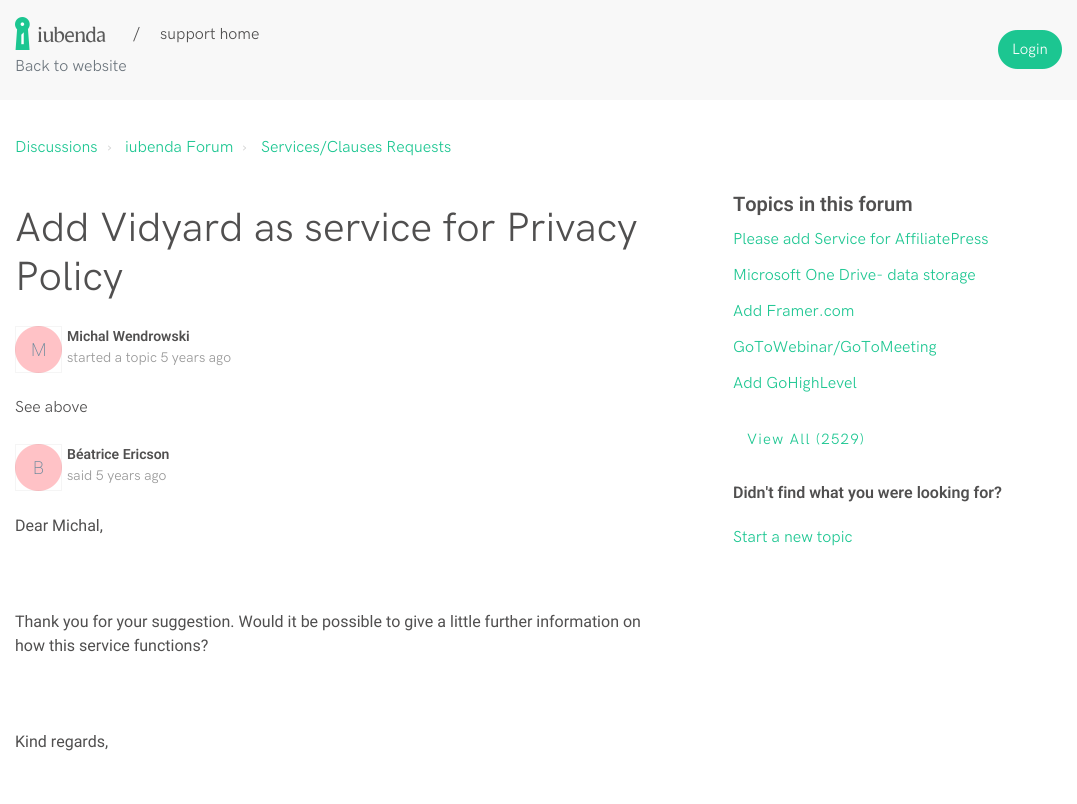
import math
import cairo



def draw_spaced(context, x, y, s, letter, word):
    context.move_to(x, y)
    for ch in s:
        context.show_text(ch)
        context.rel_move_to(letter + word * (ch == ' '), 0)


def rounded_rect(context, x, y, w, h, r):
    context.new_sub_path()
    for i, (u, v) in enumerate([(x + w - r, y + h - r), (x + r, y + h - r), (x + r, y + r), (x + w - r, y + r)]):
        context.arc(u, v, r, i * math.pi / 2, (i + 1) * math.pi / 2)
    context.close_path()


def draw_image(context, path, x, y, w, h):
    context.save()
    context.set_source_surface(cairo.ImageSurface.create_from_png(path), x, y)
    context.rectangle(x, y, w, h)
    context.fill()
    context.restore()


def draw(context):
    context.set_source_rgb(1, 1, 1)
    context.paint()
    context.set_source_rgb(248 / 255, 248 / 255, 248 / 255)
    context.rectangle(0, 0, 1077, 100)
    context.fill()
    draw_image(context, "images/1.png", 15, 17, 91, 33)
    context.set_source_rgb(28 / 255, 198 / 255, 145 / 255)
    rounded_rect(context, 998, 30, 64, 39, 19.5)
    context.fill()
    context.set_source_rgb(1, 194 / 255, 198 / 255)
    context.arc(38.5, 349.5, 23.5, 0, 2 * math.pi)
    context.fill()
    context.rectangle(15.5, 326.5, 46, 46)
    context.set_source_rgba(0, 0, 0, 0.04)
    context.set_line_width(1)
    context.stroke()
    context.set_source_rgb(1, 194 / 255, 198 / 255)
    context.arc(38.5, 467.5, 23.5, 0, 2 * math.pi)
    context.fill()
    context.rectangle(15.5, 444.5, 46, 46)
    context.set_source_rgba(0, 0, 0, 0.04)
    context.stroke()
    context.select_font_face("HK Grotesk")
    context.set_font_size(16)
    context.set_source_rgb(80 / 255, 79 / 255, 79 / 255)
    context.move_to(133, 38)
    context.show_text("/")
    context.move_to(160, 39)
    context.show_text("support home")
    context.set_source_rgb(108 / 255, 117 / 255, 125 / 255)
    context.move_to(15, 71)
    context.show_text("Back to website")
    context.set_font_size(15)
    context.set_source_rgb(1, 1, 1)
    context.move_to(1012, 54)
    context.show_text("Login")
    context.set_font_size(16)
    context.set_source_rgb(28 / 255, 198 / 255, 145 / 255)
    context.move_to(15, 152)
    context.show_text("Discussions")
    context.set_source_rgb(204 / 255, 204 / 255, 204 / 255)
    context.move_to(107, 152)
    context.show_text("›")
    context.set_source_rgb(28 / 255, 198 / 255, 145 / 255)
    context.move_to(125, 152)
    context.show_text("iubenda Forum")
    context.set_source_rgb(204 / 255, 204 / 255, 204 / 255)
    context.move_to(242, 152)
    context.show_text("›")
    context.set_source_rgb(28 / 255, 198 / 255, 145 / 255)
    context.move_to(261, 152)
    context.show_text("Services/Clauses Requests")
    context.set_font_size(41)
    context.set_source_rgb(80 / 255, 79 / 255, 79 / 255)
    context.move_to(15, 241)
    context.show_text("Add Vidyard as service for Privacy")
    context.move_to(15, 290)
    context.show_text("Policy")
    context.select_font_face("Roboto ExtraLight")
    context.set_font_size(18)
    context.set_source_rgb(99 / 255, 134 / 255, 153 / 255)
    context.move_to(31, 356)
    context.show_text("M")
    context.select_font_face("Roboto SemiBold")
    context.set_font_size(14)
    context.set_source_rgb(80 / 255, 79 / 255, 79 / 255)
    context.move_to(67, 341)
    context.show_text("Michal Wendrowski")
    context.select_font_face("HK Grotesk")
    context.set_source_rgb(151 / 255, 151 / 255, 151 / 255)
    context.move_to(67, 362)
    context.show_text("started a topic 5 years ago")
    context.set_font_size(16)
    context.set_source_rgb(80 / 255, 79 / 255, 79 / 255)
    context.move_to(15, 412)
    context.show_text("See above")
    context.select_font_face("Roboto ExtraLight")
    context.set_font_size(18)
    context.set_source_rgb(99 / 255, 134 / 255, 153 / 255)
    context.move_to(33, 474)
    context.show_text("B")
    context.select_font_face("Roboto SemiBold")
    context.set_font_size(14)
    context.set_source_rgb(80 / 255, 79 / 255, 79 / 255)
    context.move_to(67, 459)
    context.show_text("Béatrice Ericson")
    context.select_font_face("HK Grotesk")
    context.set_source_rgb(151 / 255, 151 / 255, 151 / 255)
    context.move_to(67, 480)
    context.show_text("said 5 years ago")
    context.select_font_face("Roboto")
    context.set_font_size(16)
    context.set_source_rgb(80 / 255, 79 / 255, 79 / 255)
    context.move_to(15, 531)
    context.show_text("Dear Michal,")
    context.move_to(15, 627)
    context.show_text("Thank you for your suggestion. Would it be possible to give a little further information on")
    context.move_to(15, 651)
    context.show_text("how this service functions?")
    context.move_to(15, 747)
    context.show_text("Kind regards,")
    context.select_font_face("Roboto SemiBold")
    context.set_font_size(20)
    context.move_to(733, 211)
    context.show_text("Topics in this forum")
    context.select_font_face("HK Grotesk")
    context.set_font_size(16)
    context.set_source_rgb(28 / 255, 198 / 255, 145 / 255)
    context.move_to(733, 244)
    context.show_text("Please add Service for AffiliatePress")
    context.move_to(733, 280)
    context.show_text("Microsoft One Drive- data storage")
    context.move_to(733, 316)
    context.show_text("Add Framer.com")
    context.move_to(733, 352)
    context.show_text("GoToWebinar/GoToMeeting")
    context.move_to(733, 388)
    context.show_text("Add GoHighLevel")
    context.set_font_size(15)
    draw_spaced(context, 747, 444, "View All (2529)", 1.25, 0)
    context.select_font_face("Roboto SemiBold")
    context.set_font_size(16)
    context.set_source_rgb(80 / 255, 79 / 255, 79 / 255)
    context.move_to(733, 498)
    context.show_text("Didn't find what you were looking for?")
    context.select_font_face("HK Grotesk")
    context.set_source_rgb(28 / 255, 198 / 255, 145 / 255)
    context.move_to(733, 542)
    context.show_text("Start a new topic")


surface = cairo.ImageSurface(cairo.Format.RGB24, 1077, 804)
context = cairo.Context(surface)
options = cairo.FontOptions()
options.set_hint_metrics(cairo.HintMetrics.OFF)
options.set_hint_style(cairo.HintStyle.NONE)
context.set_font_options(options)
context.set_miter_limit(4)
draw(context)
surface.write_to_png("out.png")
